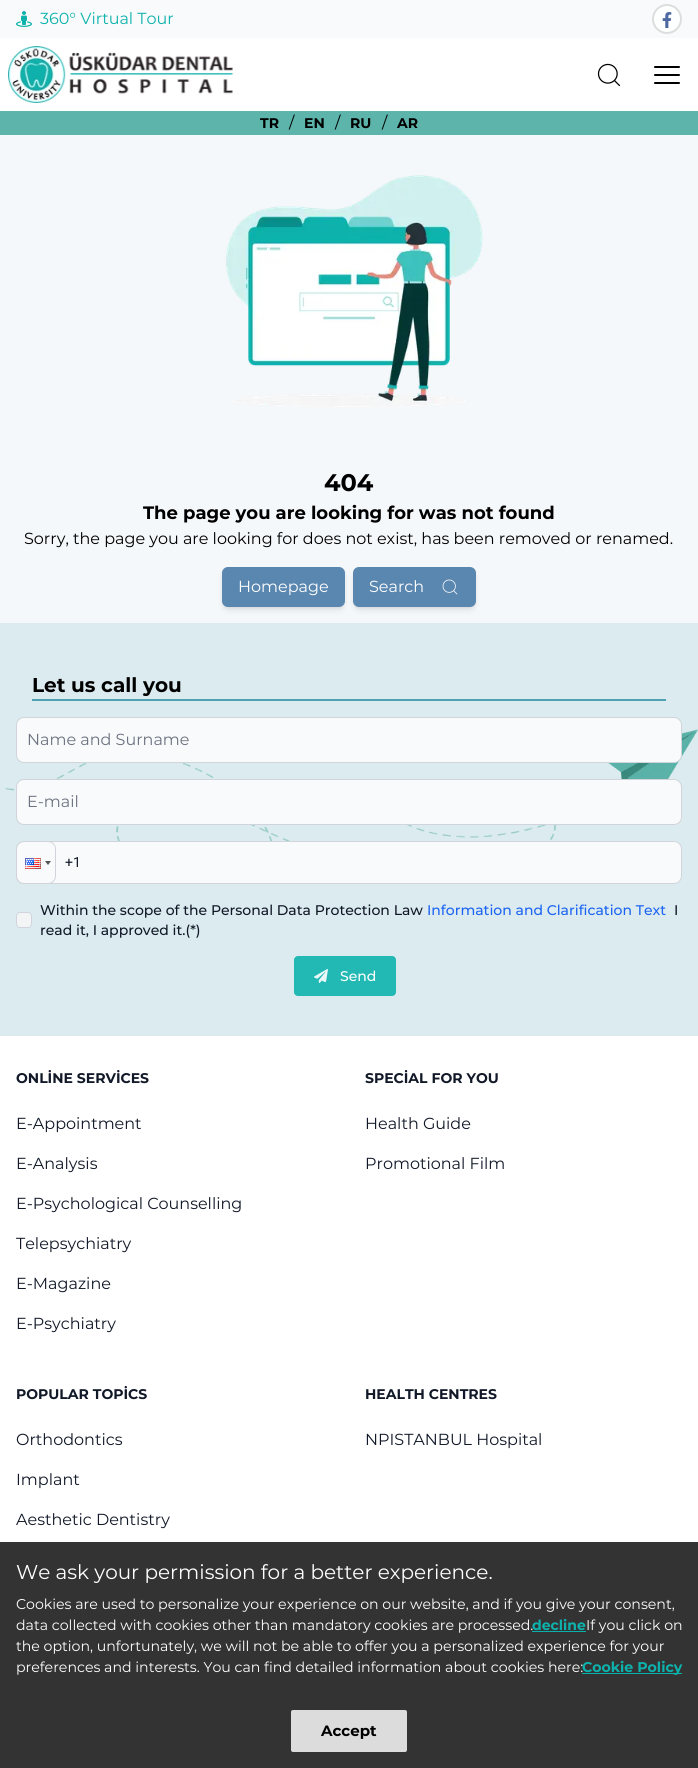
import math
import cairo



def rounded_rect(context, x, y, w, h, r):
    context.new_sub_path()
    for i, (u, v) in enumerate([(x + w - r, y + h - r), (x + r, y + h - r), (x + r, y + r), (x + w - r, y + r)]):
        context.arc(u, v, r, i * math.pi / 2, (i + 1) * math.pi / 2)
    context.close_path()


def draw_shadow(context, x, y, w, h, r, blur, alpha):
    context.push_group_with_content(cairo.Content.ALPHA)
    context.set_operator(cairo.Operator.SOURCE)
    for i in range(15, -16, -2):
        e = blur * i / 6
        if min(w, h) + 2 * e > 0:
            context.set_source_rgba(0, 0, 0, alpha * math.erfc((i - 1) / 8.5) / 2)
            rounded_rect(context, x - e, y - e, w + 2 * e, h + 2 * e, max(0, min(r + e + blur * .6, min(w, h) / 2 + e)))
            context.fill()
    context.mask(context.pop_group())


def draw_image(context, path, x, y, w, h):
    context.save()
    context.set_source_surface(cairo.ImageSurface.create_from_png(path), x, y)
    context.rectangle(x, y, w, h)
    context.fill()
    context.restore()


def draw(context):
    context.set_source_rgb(245 / 255, 248 / 255, 251 / 255)
    context.paint()
    context.set_source_rgb(249 / 255, 250 / 255, 251 / 255)
    context.rectangle(0, 0, 698, 38)
    context.fill()
    draw_image(context, "images/1.png", 16, 11, 16, 16)
    context.set_source_rgb(254 / 255, 1, 1)
    context.arc(667, 19, 14, 0, 2 * math.pi)
    context.fill_preserve()
    context.set_source_rgb(221 / 255, 221 / 255, 221 / 255)
    context.stroke()
    draw_image(context, "images/2.png", 662, 12, 10, 16)
    context.set_source_rgb(1, 1, 1)
    context.rectangle(0, 38, 698, 73)
    context.fill()
    draw_image(context, "images/3.png", 8, 46, 225, 57)
    draw_image(context, "images/4.png", 597, 63, 24, 24)
    draw_image(context, "images/5.png", 654, 66, 26, 18)
    context.set_source_rgb(92 / 255, 180 / 255, 171 / 255)
    context.rectangle(0, 111, 698, 24)
    context.fill()
    draw_image(context, "images/6.png", 225, 175, 258, 232)
    context.set_source_rgb(25 / 255, 25 / 255, 25 / 255)
    draw_shadow(context, 224, 571, 119, 36, 4, 2, 0.1)
    draw_shadow(context, 223, 572, 121, 38, 5, 3, 0.1)
    context.set_source_rgb(90 / 255, 135 / 255, 176 / 255)
    rounded_rect(context, 222, 567, 123, 40, 6)
    context.fill()
    context.set_source_rgb(24 / 255, 25 / 255, 25 / 255)
    draw_shadow(context, 355, 571, 119, 36, 4, 2, 0.1)
    draw_shadow(context, 354, 572, 121, 38, 5, 3, 0.1)
    context.set_source_rgb(90 / 255, 135 / 255, 176 / 255)
    rounded_rect(context, 353, 567, 123, 40, 6)
    context.fill()
    draw_image(context, "images/7.png", 442, 579, 16, 16)
    context.set_source_rgb(1, 1, 1)
    context.rectangle(0, 1036, 698, 506)
    context.fill()
    context.set_source_rgb(219 / 255, 235 / 255, 239 / 255)
    context.rectangle(0, 623, 698, 413)
    context.fill()
    draw_image(context, "images/8.png", 5, 729, 693, 112)
    context.set_source_rgb(78 / 255, 162 / 255, 177 / 255)
    context.rectangle(32, 699, 634, 2)
    context.fill()
    context.set_source_rgb(249 / 255, 250 / 255, 251 / 255)
    rounded_rect(context, 16.5, 717.5, 665, 45, 7.5)
    context.fill_preserve()
    context.set_source_rgb(209 / 255, 213 / 255, 219 / 255)
    context.set_line_width(1)
    context.stroke()
    context.set_source_rgb(249 / 255, 250 / 255, 251 / 255)
    rounded_rect(context, 16.5, 779.5, 665, 45, 7.5)
    context.fill_preserve()
    context.set_source_rgb(209 / 255, 213 / 255, 219 / 255)
    context.stroke()
    context.set_source_rgb(249 / 255, 250 / 255, 251 / 255)
    rounded_rect(context, 16.5, 841.5, 665, 42, 7.5)
    context.fill_preserve()
    context.set_source_rgb(209 / 255, 213 / 255, 219 / 255)
    context.stroke()
    context.set_source_rgb(249 / 255, 250 / 255, 251 / 255)
    rounded_rect(context, 16.5, 841.5, 39, 42, 7.5)
    context.fill_preserve()
    context.set_source_rgb(209 / 255, 213 / 255, 219 / 255)
    context.stroke()
    draw_image(context, "images/9.png", 25, 858, 16, 11)
    context.set_source_rgb(85 / 255, 85 / 255, 85 / 255)
    context.new_path()
    context.move_to(45, 861)
    context.line_to(51, 861)
    context.line_to(48, 865)
    context.close_path()
    context.fill()
    context.set_source_rgb(243 / 255, 244 / 255, 246 / 255)
    rounded_rect(context, 16.5, 912.5, 15, 15, 3.5)
    context.fill_preserve()
    context.set_source_rgb(209 / 255, 213 / 255, 219 / 255)
    context.stroke()
    context.set_source_rgb(34 / 255, 184 / 255, 179 / 255)
    rounded_rect(context, 294, 956, 102, 40, 4)
    context.fill()
    draw_image(context, "images/10.png", 314, 969, 14, 14)
    context.set_source_rgb(51 / 255, 51 / 255, 51 / 255)
    context.rectangle(0, 1542, 698, 226)
    context.fill()
    context.set_source_rgb(9 / 255, 179 / 255, 173 / 255)
    context.rectangle(532, 1631, 54, 1)
    context.fill()
    context.rectangle(582, 1673, 100, 1)
    context.fill()
    context.set_source_rgb(220 / 255, 220 / 255, 220 / 255)
    rounded_rect(context, 291, 1710, 116, 42, 2)
    context.fill()
    context.select_font_face("Montserrat")
    context.set_font_size(16)
    context.set_source_rgb(13 / 255, 178 / 255, 172 / 255)
    context.move_to(40, 24)
    context.show_text("360° Virtual Tour")
    context.select_font_face("Montserrat", cairo.FontSlant.NORMAL, cairo.FontWeight.BOLD)
    context.set_font_size(14)
    context.set_source_rgb(0, 0, 0)
    context.move_to(260, 128)
    context.show_text("TR")
    context.select_font_face("Montserrat")
    context.set_font_size(16)
    context.move_to(289, 128)
    context.show_text("/")
    context.select_font_face("Montserrat", cairo.FontSlant.NORMAL, cairo.FontWeight.BOLD)
    context.set_font_size(14)
    context.move_to(304, 128)
    context.show_text("EN")
    context.select_font_face("Montserrat")
    context.set_font_size(16)
    context.move_to(335, 128)
    context.show_text("/")
    context.select_font_face("Montserrat", cairo.FontSlant.NORMAL, cairo.FontWeight.BOLD)
    context.set_font_size(14)
    context.move_to(350, 128)
    context.show_text("RU")
    context.select_font_face("Montserrat")
    context.set_font_size(16)
    context.move_to(382, 128)
    context.show_text("/")
    context.select_font_face("Montserrat", cairo.FontSlant.NORMAL, cairo.FontWeight.BOLD)
    context.set_font_size(14)
    context.move_to(397, 128)
    context.show_text("AR")
    context.set_font_size(24)
    context.move_to(324, 491)
    context.show_text("404")
    context.set_font_size(18)
    context.move_to(143, 519)
    context.show_text("The page you are looking for was not found")
    context.select_font_face("Montserrat")
    context.set_font_size(16)
    context.move_to(24, 544)
    context.show_text("Sorry, the page you are looking for does not exist, has been removed or renamed.")
    context.set_source_rgb(254 / 255, 254 / 255, 1)
    context.move_to(238, 592)
    context.show_text("Homepage")
    context.move_to(369, 592)
    context.show_text("Search")
    context.select_font_face("Montserrat", cairo.FontSlant.NORMAL, cairo.FontWeight.BOLD)
    context.set_font_size(20)
    context.set_source_rgb(0, 0, 0)
    context.move_to(32, 692)
    context.show_text("Let us call you")
    context.select_font_face("Montserrat")
    context.set_font_size(16)
    context.set_source_rgb(107 / 255, 114 / 255, 128 / 255)
    context.move_to(27, 745)
    context.show_text("Name and Surname")
    context.move_to(27, 807)
    context.show_text("E-mail")
    context.select_font_face("Roboto")
    context.set_font_size(14)
    context.set_source_rgb(17 / 255, 24 / 255, 39 / 255)
    context.move_to(65, 867)
    context.show_text("+1")
    context.select_font_face("Montserrat Medium")
    context.move_to(40, 915)
    context.show_text("Within the scope of the Personal Data Protection Law")
    context.set_source_rgb(28 / 255, 100 / 255, 242 / 255)
    context.move_to(427, 915)
    context.show_text("Information and Clarification Text")
    context.set_source_rgb(17 / 255, 24 / 255, 39 / 255)
    context.move_to(674, 915)
    context.show_text("I")
    context.move_to(40, 935)
    context.show_text("read it, I approved it.(*)")
    context.set_source_rgb(254 / 255, 254 / 255, 1)
    context.move_to(340, 981)
    context.show_text("Send")
    context.select_font_face("Montserrat", cairo.FontSlant.NORMAL, cairo.FontWeight.BOLD)
    context.set_source_rgb(17 / 255, 24 / 255, 39 / 255)
    context.move_to(16, 1083)
    context.show_text("ONLİNE SERVİCES")
    context.select_font_face("Montserrat")
    context.set_font_size(16)
    context.move_to(16, 1129)
    context.show_text("E-Appointment")
    context.move_to(16, 1169)
    context.show_text("E-Analysis")
    context.move_to(16, 1209)
    context.show_text("E-Psychological Counselling")
    context.move_to(16, 1249)
    context.show_text("Telepsychiatry")
    context.move_to(16, 1289)
    context.show_text("E-Magazine")
    context.move_to(16, 1329)
    context.show_text("E-Psychiatry")
    context.select_font_face("Montserrat", cairo.FontSlant.NORMAL, cairo.FontWeight.BOLD)
    context.set_font_size(14)
    context.move_to(365, 1083)
    context.show_text("SPECİAL FOR YOU")
    context.select_font_face("Montserrat")
    context.set_font_size(16)
    context.move_to(365, 1129)
    context.show_text("Health Guide")
    context.move_to(365, 1169)
    context.show_text("Promotional Film")
    context.select_font_face("Montserrat", cairo.FontSlant.NORMAL, cairo.FontWeight.BOLD)
    context.set_font_size(14)
    context.move_to(16, 1399)
    context.show_text("POPULAR TOPİCS")
    context.select_font_face("Montserrat")
    context.set_font_size(16)
    context.move_to(16, 1445)
    context.show_text("Orthodontics")
    context.move_to(16, 1485)
    context.show_text("Implant")
    context.move_to(16, 1525)
    context.show_text("Aesthetic Dentistry")
    context.select_font_face("Montserrat", cairo.FontSlant.NORMAL, cairo.FontWeight.BOLD)
    context.set_font_size(14)
    context.move_to(365, 1399)
    context.show_text("HEALTH CENTRES")
    context.select_font_face("Montserrat")
    context.set_font_size(16)
    context.move_to(365, 1445)
    context.show_text("NPISTANBUL Hospital")
    context.set_font_size(20)
    context.set_source_rgb(254 / 255, 254 / 255, 1)
    context.move_to(16, 1579)
    context.show_text("We ask your permission for a better experience.")
    context.set_font_size(14.15)
    context.move_to(16, 1609)
    context.show_text("Cookies are used to personalize your experience on our website, and if you give your consent,")
    context.move_to(16, 1630)
    context.show_text("data collected with cookies other than mandatory cookies are processed.")
    context.select_font_face("Montserrat", cairo.FontSlant.NORMAL, cairo.FontWeight.BOLD)
    context.set_font_size(14)
    context.set_source_rgb(13 / 255, 178 / 255, 172 / 255)
    context.move_to(532, 1630)
    context.show_text("decline")
    context.select_font_face("Montserrat")
    context.set_font_size(14.15)
    context.set_source_rgb(254 / 255, 254 / 255, 1)
    context.move_to(586, 1630)
    context.show_text("If you click on")
    context.move_to(16, 1651)
    context.show_text("the option, unfortunately, we will not be able to offer you a personalized experience for your")
    context.move_to(16, 1672)
    context.show_text("preferences and interests. You can find detailed information about cookies here:")
    context.select_font_face("Montserrat", cairo.FontSlant.NORMAL, cairo.FontWeight.BOLD)
    context.set_source_rgb(13 / 255, 178 / 255, 172 / 255)
    context.move_to(582, 1672)
    context.show_text("Cookie Policy")
    context.set_font_size(15)
    context.set_source_rgb(0, 0, 0)
    context.move_to(321, 1736)
    context.show_text("Accept")


surface = cairo.ImageSurface(cairo.Format.RGB24, 698, 1768)
context = cairo.Context(surface)
options = cairo.FontOptions()
options.set_hint_metrics(cairo.HintMetrics.OFF)
options.set_hint_style(cairo.HintStyle.NONE)
context.set_font_options(options)
context.set_miter_limit(4)
draw(context)
surface.write_to_png("out.png")
